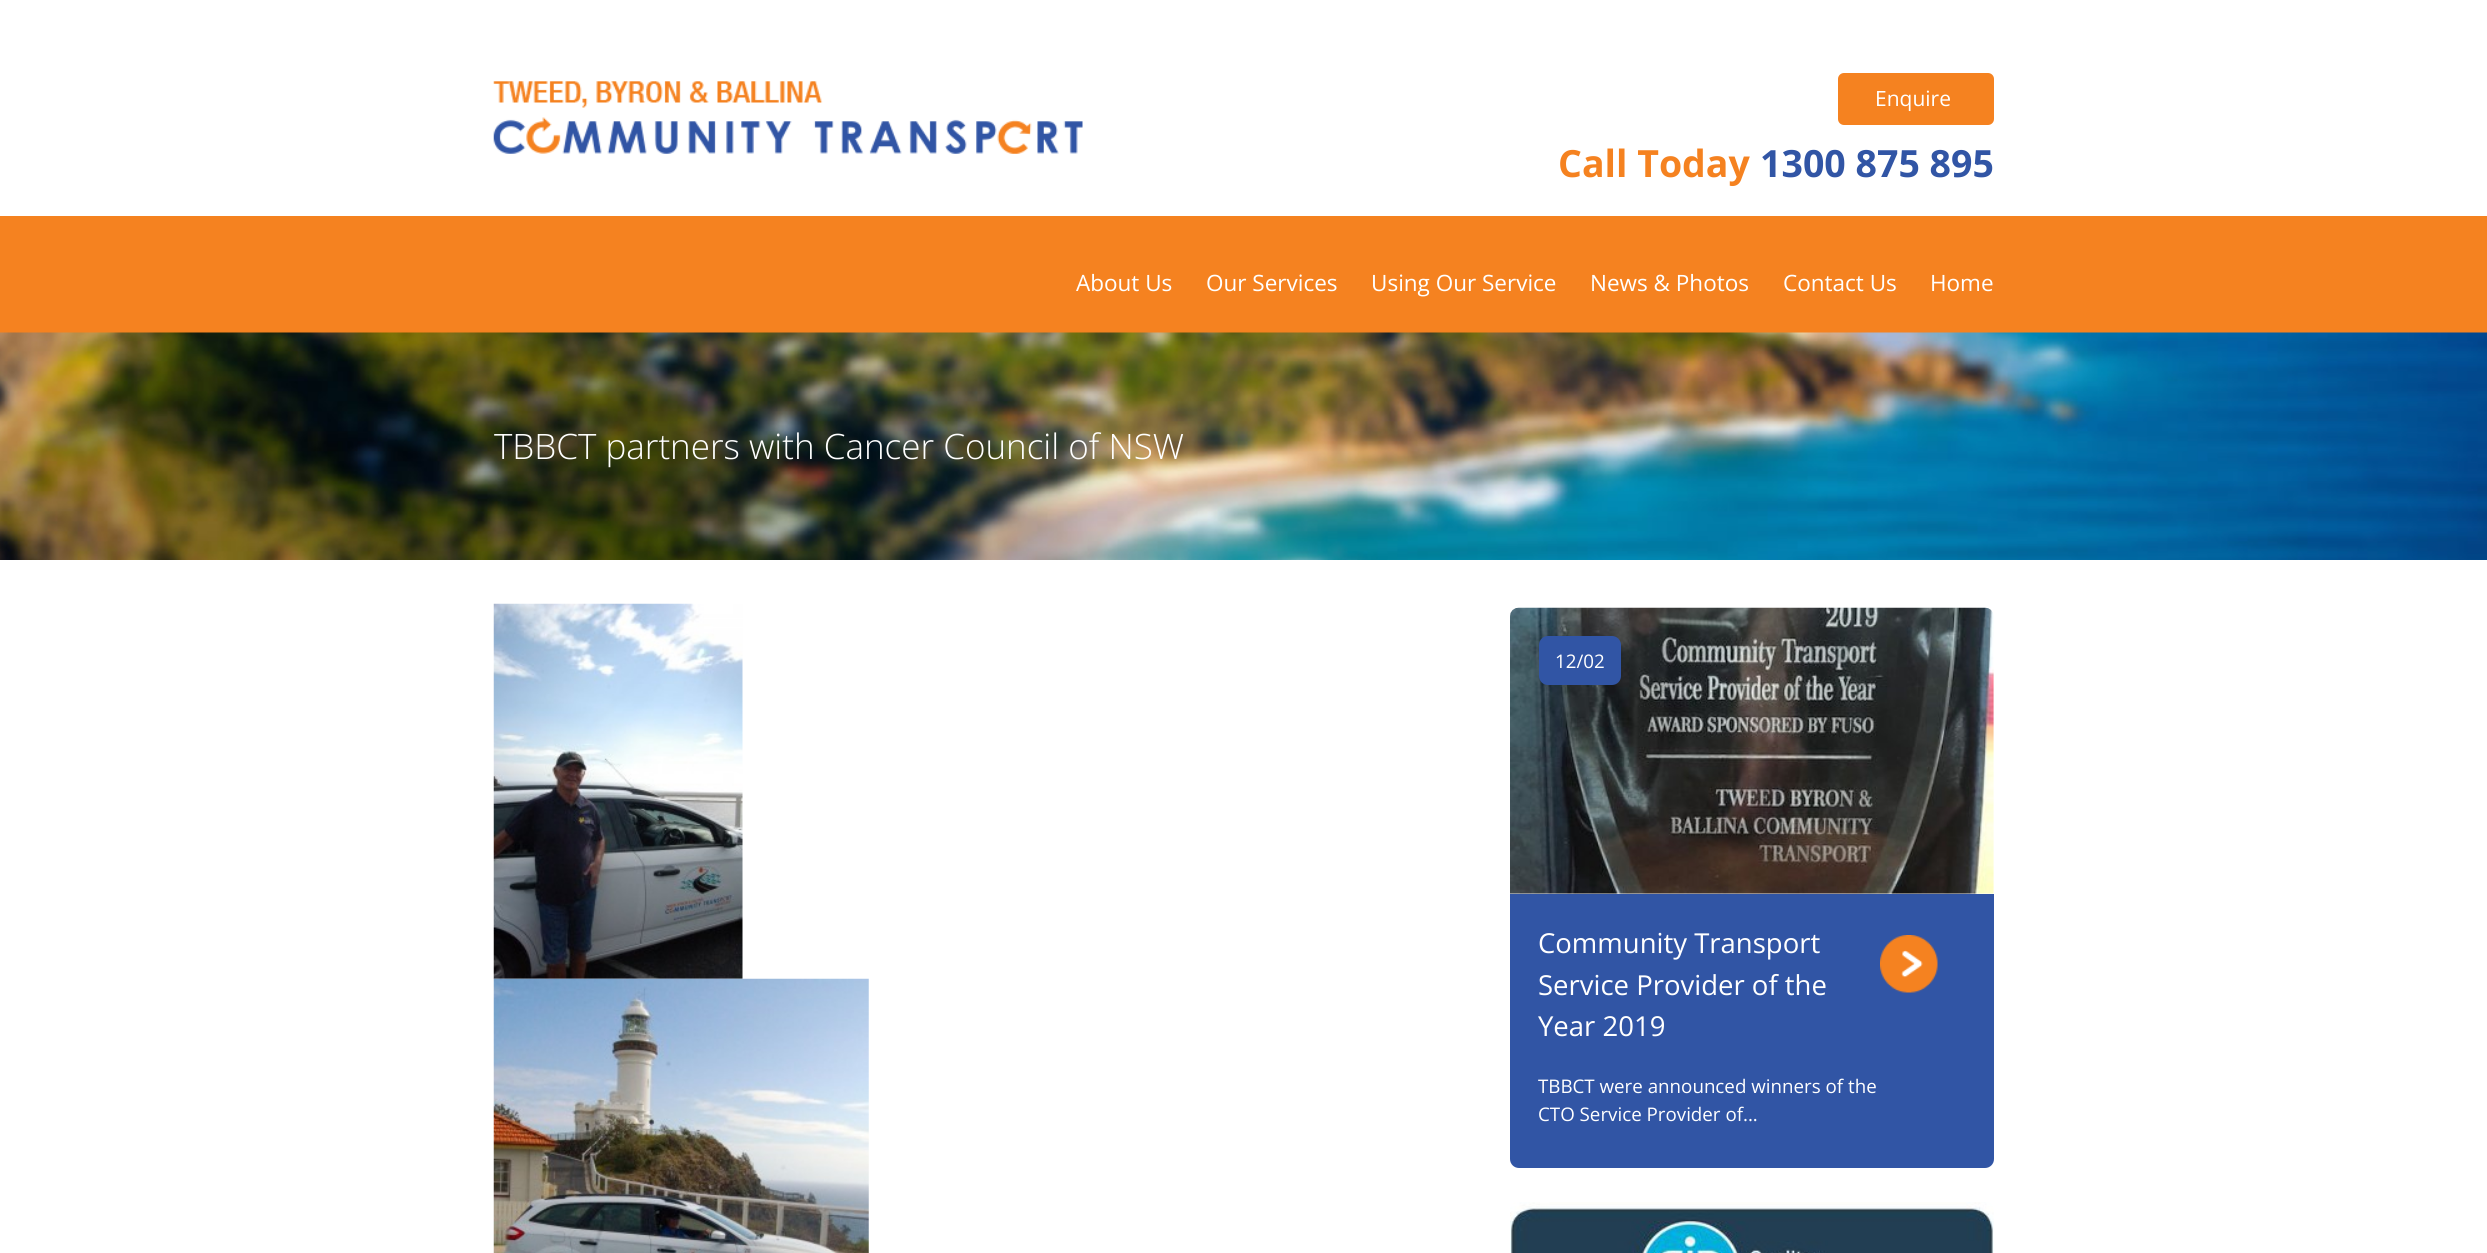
import math
import cairo



def rounded_rect(context, x, y, w, h, r):
    context.new_sub_path()
    for i, (u, v) in enumerate([(x + w - r, y + h - r), (x + r, y + h - r), (x + r, y + r), (x + w - r, y + r)]):
        context.arc(u, v, r, i * math.pi / 2, (i + 1) * math.pi / 2)
    context.close_path()


def draw_image(context, path, x, y, w, h):
    context.save()
    context.set_source_surface(cairo.ImageSurface.create_from_png(path), x, y)
    context.rectangle(x, y, w, h)
    context.fill()
    context.restore()


def draw(context):
    context.set_source_rgb(1, 1, 1)
    context.paint()
    draw_image(context, "images/1.png", 493, 81, 590, 73)
    context.set_source_rgb(245 / 255, 130 / 255, 32 / 255)
    rounded_rect(context, 1838, 73, 156, 52, 6)
    context.fill()
    context.rectangle(0, 216, 2487, 117)
    context.fill()
    draw_image(context, "images/2.png", 0, 332, 2487, 228)
    draw_image(context, "images/3.png", 493, 603, 250, 376)
    draw_image(context, "images/4.png", 493, 978, 376, 275)
    draw_image(context, "images/5.png", 1510, 607, 484, 287)
    context.set_source_rgb(49 / 255, 85 / 255, 165 / 255)
    rounded_rect(context, 1539, 636, 82, 49, 9)
    context.fill()
    context.new_path()
    context.move_to(1510, 894)
    context.line_to(1994, 894)
    context.line_to(1994, 1159)
    context.curve_to(1994, 1164, 1990, 1168, 1985, 1168)
    context.line_to(1519, 1168)
    context.curve_to(1514, 1168, 1510, 1164, 1510, 1159)
    context.close_path()
    context.fill()
    draw_image(context, "images/6.png", 1880, 935, 58, 58)
    draw_image(context, "images/7.png", 1510, 1202, 484, 51)
    context.select_font_face("Open Sans")
    context.set_font_size(21)
    context.set_source_rgb(1, 1, 1)
    context.move_to(1875, 106)
    context.show_text("Enquire")
    context.select_font_face("Open Sans", cairo.FontSlant.NORMAL, cairo.FontWeight.BOLD)
    context.set_font_size(37.5)
    context.set_source_rgb(245 / 255, 130 / 255, 32 / 255)
    context.move_to(1558, 177)
    context.show_text("Call Today")
    context.set_source_rgb(49 / 255, 85 / 255, 165 / 255)
    context.move_to(1760, 177)
    context.show_text("1300 875 895")
    context.select_font_face("Open Sans")
    context.set_font_size(22.5)
    context.set_source_rgb(1, 1, 1)
    context.move_to(1076, 291)
    context.show_text("About Us")
    context.move_to(1206, 291)
    context.show_text("Our Services")
    context.move_to(1371, 291)
    context.show_text("Using Our Service")
    context.move_to(1590, 291)
    context.show_text("News & Photos")
    context.move_to(1783, 291)
    context.show_text("Contact Us")
    context.move_to(1930, 291)
    context.show_text("Home")
    context.select_font_face("Open Sans Light")
    context.set_font_size(35)
    context.move_to(494, 459)
    context.show_text("TBBCT partners with Cancer Council of NSW")
    context.select_font_face("Open Sans")
    context.set_font_size(18.75)
    context.move_to(1555, 668)
    context.show_text("12/02")
    context.set_font_size(27.5)
    context.move_to(1538, 953)
    context.show_text("Community Transport")
    context.move_to(1538, 995)
    context.show_text("Service Provider of the")
    context.move_to(1538, 1036)
    context.show_text("Year 2019")
    context.set_font_size(18.75)
    context.move_to(1538, 1093)
    context.show_text("TBBCT were announced winners of the")
    context.move_to(1538, 1121)
    context.show_text("CTO Service Provider of...")


surface = cairo.ImageSurface(cairo.Format.RGB24, 2487, 1253)
context = cairo.Context(surface)
options = cairo.FontOptions()
options.set_hint_metrics(cairo.HintMetrics.OFF)
options.set_hint_style(cairo.HintStyle.NONE)
context.set_font_options(options)
context.set_miter_limit(4)
draw(context)
surface.write_to_png("out.png")
